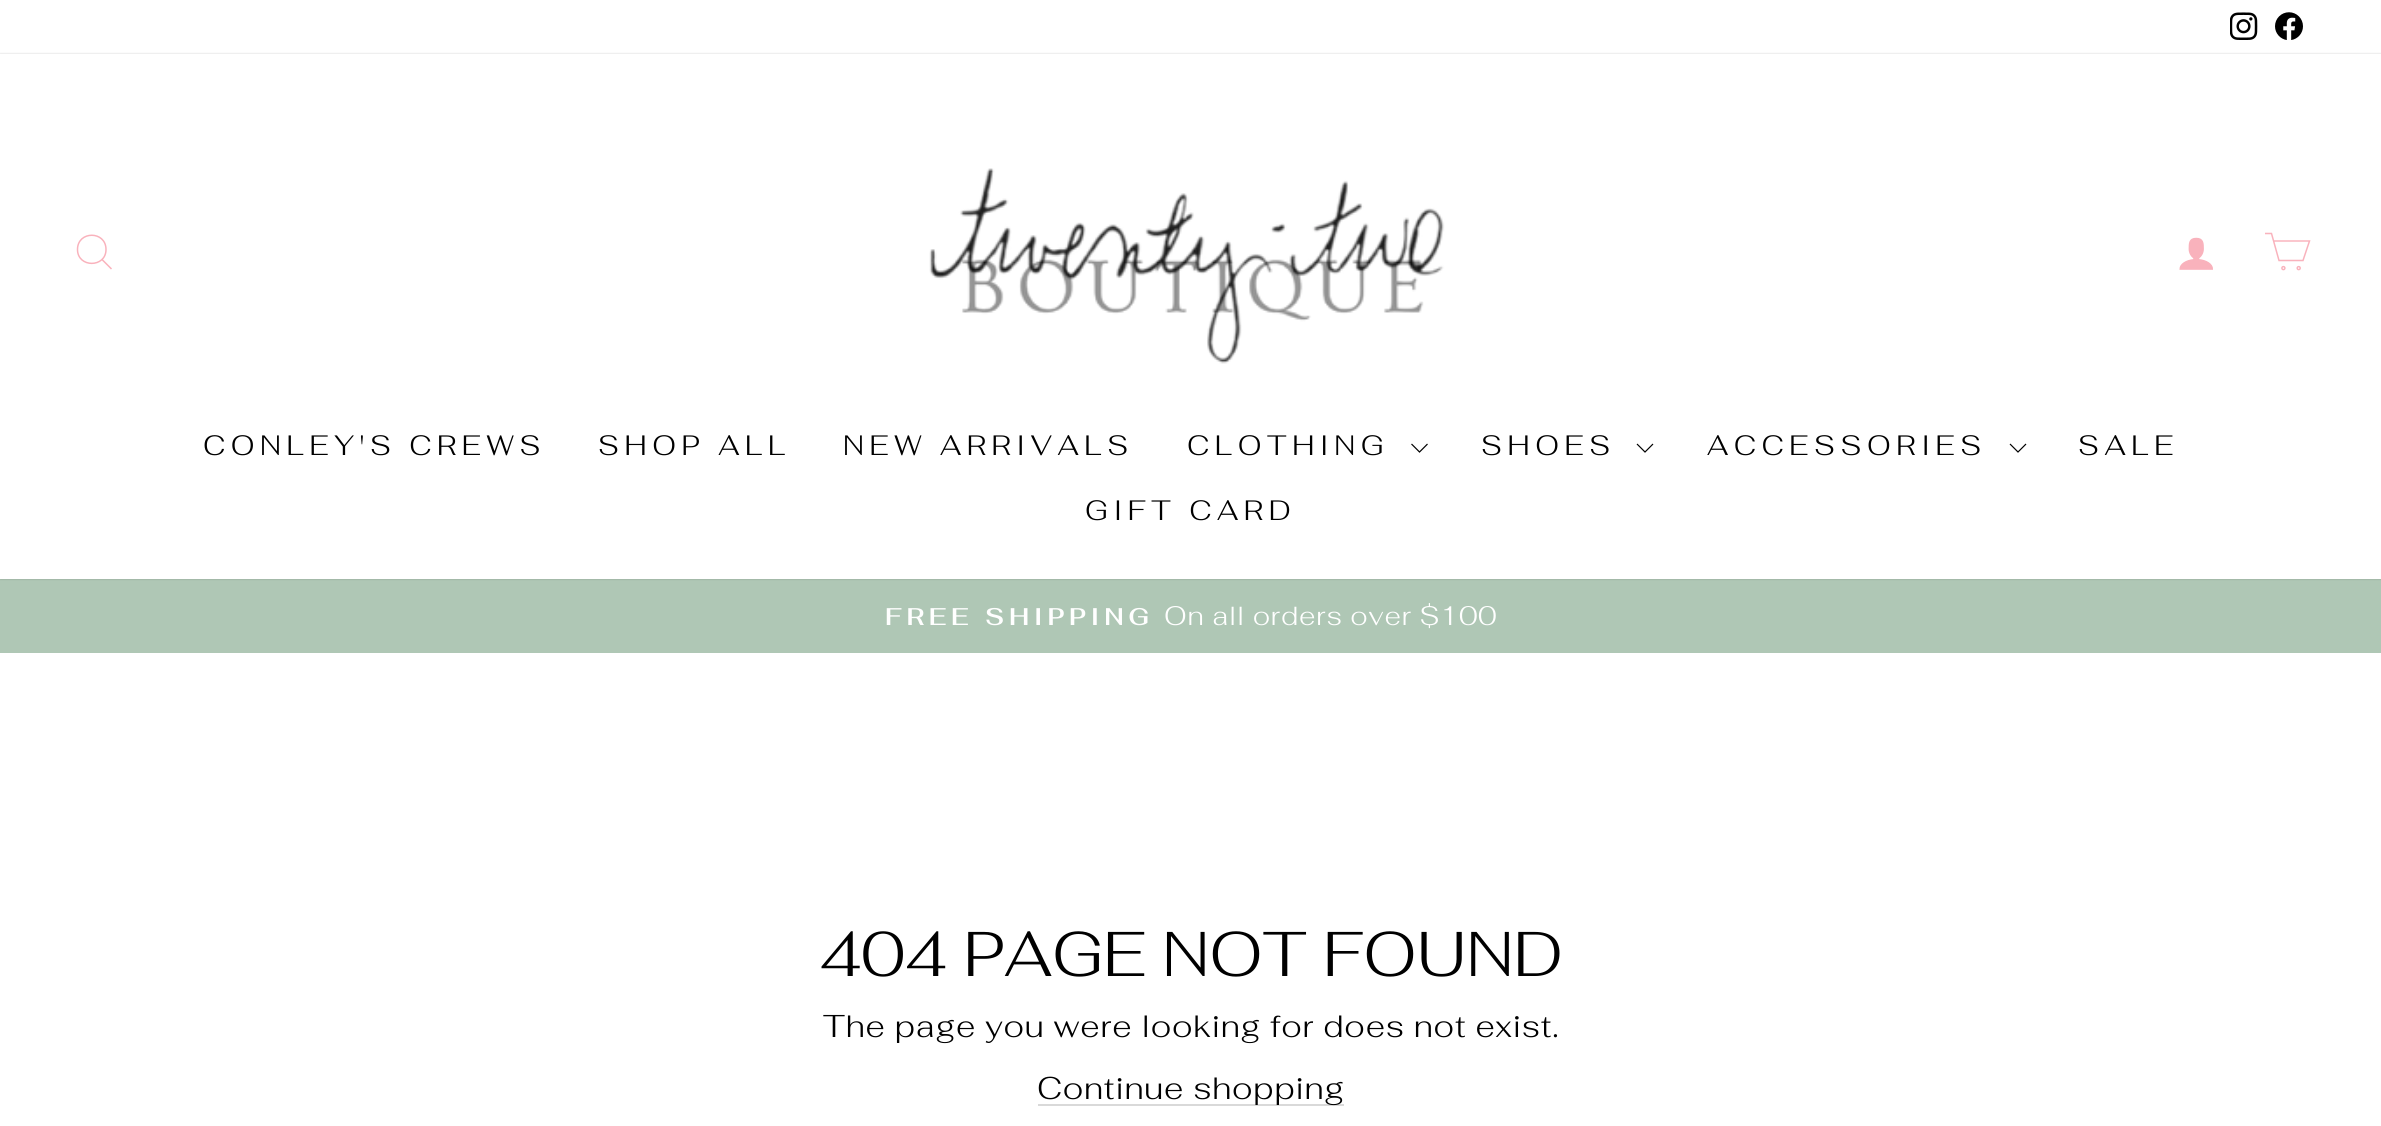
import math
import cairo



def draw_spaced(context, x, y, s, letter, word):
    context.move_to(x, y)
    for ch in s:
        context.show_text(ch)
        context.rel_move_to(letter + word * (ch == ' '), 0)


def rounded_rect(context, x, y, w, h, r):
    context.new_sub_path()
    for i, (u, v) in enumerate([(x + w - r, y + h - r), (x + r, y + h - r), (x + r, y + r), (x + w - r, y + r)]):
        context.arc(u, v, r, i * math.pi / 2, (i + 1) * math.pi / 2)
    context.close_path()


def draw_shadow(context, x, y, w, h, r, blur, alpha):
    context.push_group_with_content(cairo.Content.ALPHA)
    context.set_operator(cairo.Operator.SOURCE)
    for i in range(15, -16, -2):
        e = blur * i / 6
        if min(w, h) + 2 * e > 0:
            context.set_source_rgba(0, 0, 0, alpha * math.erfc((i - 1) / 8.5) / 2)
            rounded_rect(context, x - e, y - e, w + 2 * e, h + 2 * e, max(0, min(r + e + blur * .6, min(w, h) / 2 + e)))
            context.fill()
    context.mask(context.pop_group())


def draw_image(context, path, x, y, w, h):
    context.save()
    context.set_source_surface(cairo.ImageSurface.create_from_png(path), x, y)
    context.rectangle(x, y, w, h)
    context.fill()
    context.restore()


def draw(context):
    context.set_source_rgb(1, 1, 1)
    context.paint()
    draw_image(context, "images/1.png", 2230, 12, 28, 28)
    draw_image(context, "images/2.png", 2275, 12, 28, 28)
    context.set_source_rgb(175 / 255, 199 / 255, 181 / 255)
    context.rectangle(0, 579, 2381, 74)
    context.fill()
    context.set_source_rgb(0, 0, 0)
    draw_shadow(context, 0, 54, 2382, 525, 0, 1, 0.2)
    context.set_source_rgb(1, 1, 1)
    context.rectangle(0, 54, 2381, 525)
    context.fill()
    context.new_path()
    context.move_to(106, 249.5)
    context.curve_to(106, 268, 77.5, 268, 77.5, 249.5)
    context.curve_to(77.5, 230.5, 106, 230.5, 106, 249.5)
    context.close_path()
    context.move_to(111.5, 269)
    context.line_to(102, 259.5)
    context.set_source_rgb(249 / 255, 178 / 255, 188 / 255)
    context.set_line_width(1.5)
    context.stroke()
    draw_image(context, "images/3.png", 929, 168, 516, 196)
    draw_image(context, "images/4.png", 2179, 237, 34, 33)
    context.new_path()
    context.move_to(2273.5, 241)
    context.line_to(2309.5, 241)
    context.line_to(2303, 260.5)
    context.line_to(2279, 260.5)
    context.line_to(2271.5, 233.5)
    context.line_to(2265, 233.5)
    context.stroke()
    context.arc(2283.4, 268.1, 1.5, 0, 2 * math.pi)
    context.stroke()
    context.arc(2298.7, 268.1, 1.5, 0, 2 * math.pi)
    context.stroke()
    context.new_path()
    context.move_to(1411.5, 444)
    context.line_to(1419.5, 452)
    context.line_to(1427.5, 444)
    context.set_source_rgb(0, 0, 0)
    context.set_line_width(1.2)
    context.stroke()
    context.new_path()
    context.move_to(1637, 444)
    context.line_to(1645, 452)
    context.line_to(1653, 444)
    context.stroke()
    context.new_path()
    context.move_to(2010, 444)
    context.line_to(2018, 452)
    context.line_to(2026, 444)
    context.stroke()
    context.set_source_rgb(217 / 255, 217 / 255, 217 / 255)
    context.rectangle(1038, 1104, 306, 2)
    context.fill()
    context.select_font_face("Fahkwang Light")
    context.set_font_size(28)
    context.set_source_rgb(0, 0, 0)
    draw_spaced(context, 203, 455, "CONLEY'S CREWS", 5.6, 0)
    draw_spaced(context, 598, 455, "SHOP ALL", 5.6, 0)
    draw_spaced(context, 843, 455, "NEW ARRIVALS", 5.6, 0)
    draw_spaced(context, 1187, 455, "CLOTHING", 5.6, 0)
    draw_spaced(context, 1481, 455, "SHOES", 5.6, 0)
    draw_spaced(context, 1707, 455, "ACCESSORIES", 5.6, 0)
    draw_spaced(context, 2078, 455, "SALE", 5.6, 0)
    draw_spaced(context, 1085, 520, "GIFT CARD", 5.6, 0)
    context.select_font_face("Fahkwang SemiBold")
    context.set_font_size(24.1)
    context.set_source_rgb(1, 1, 1)
    draw_spaced(context, 885, 625, "FREE SHIPPING", 4.75, 0)
    context.select_font_face("Fahkwang Light")
    context.set_font_size(26.75)
    draw_spaced(context, 1164, 625, "On all orders over $100", 0.8, 0)
    context.set_font_size(63)
    context.set_source_rgb(0, 0, 0)
    context.move_to(819, 976)
    context.show_text("404 PAGE NOT FOUND")
    context.set_font_size(31.5)
    draw_spaced(context, 823, 1037, "The page you were looking for does not exist.", 0.8, 0)
    draw_spaced(context, 1037, 1099, "Continue shopping", 0.8, 0)


surface = cairo.ImageSurface(cairo.Format.RGB24, 2381, 1126)
context = cairo.Context(surface)
options = cairo.FontOptions()
options.set_hint_metrics(cairo.HintMetrics.OFF)
options.set_hint_style(cairo.HintStyle.NONE)
context.set_font_options(options)
context.set_miter_limit(4)
draw(context)
surface.write_to_png("out.png")
